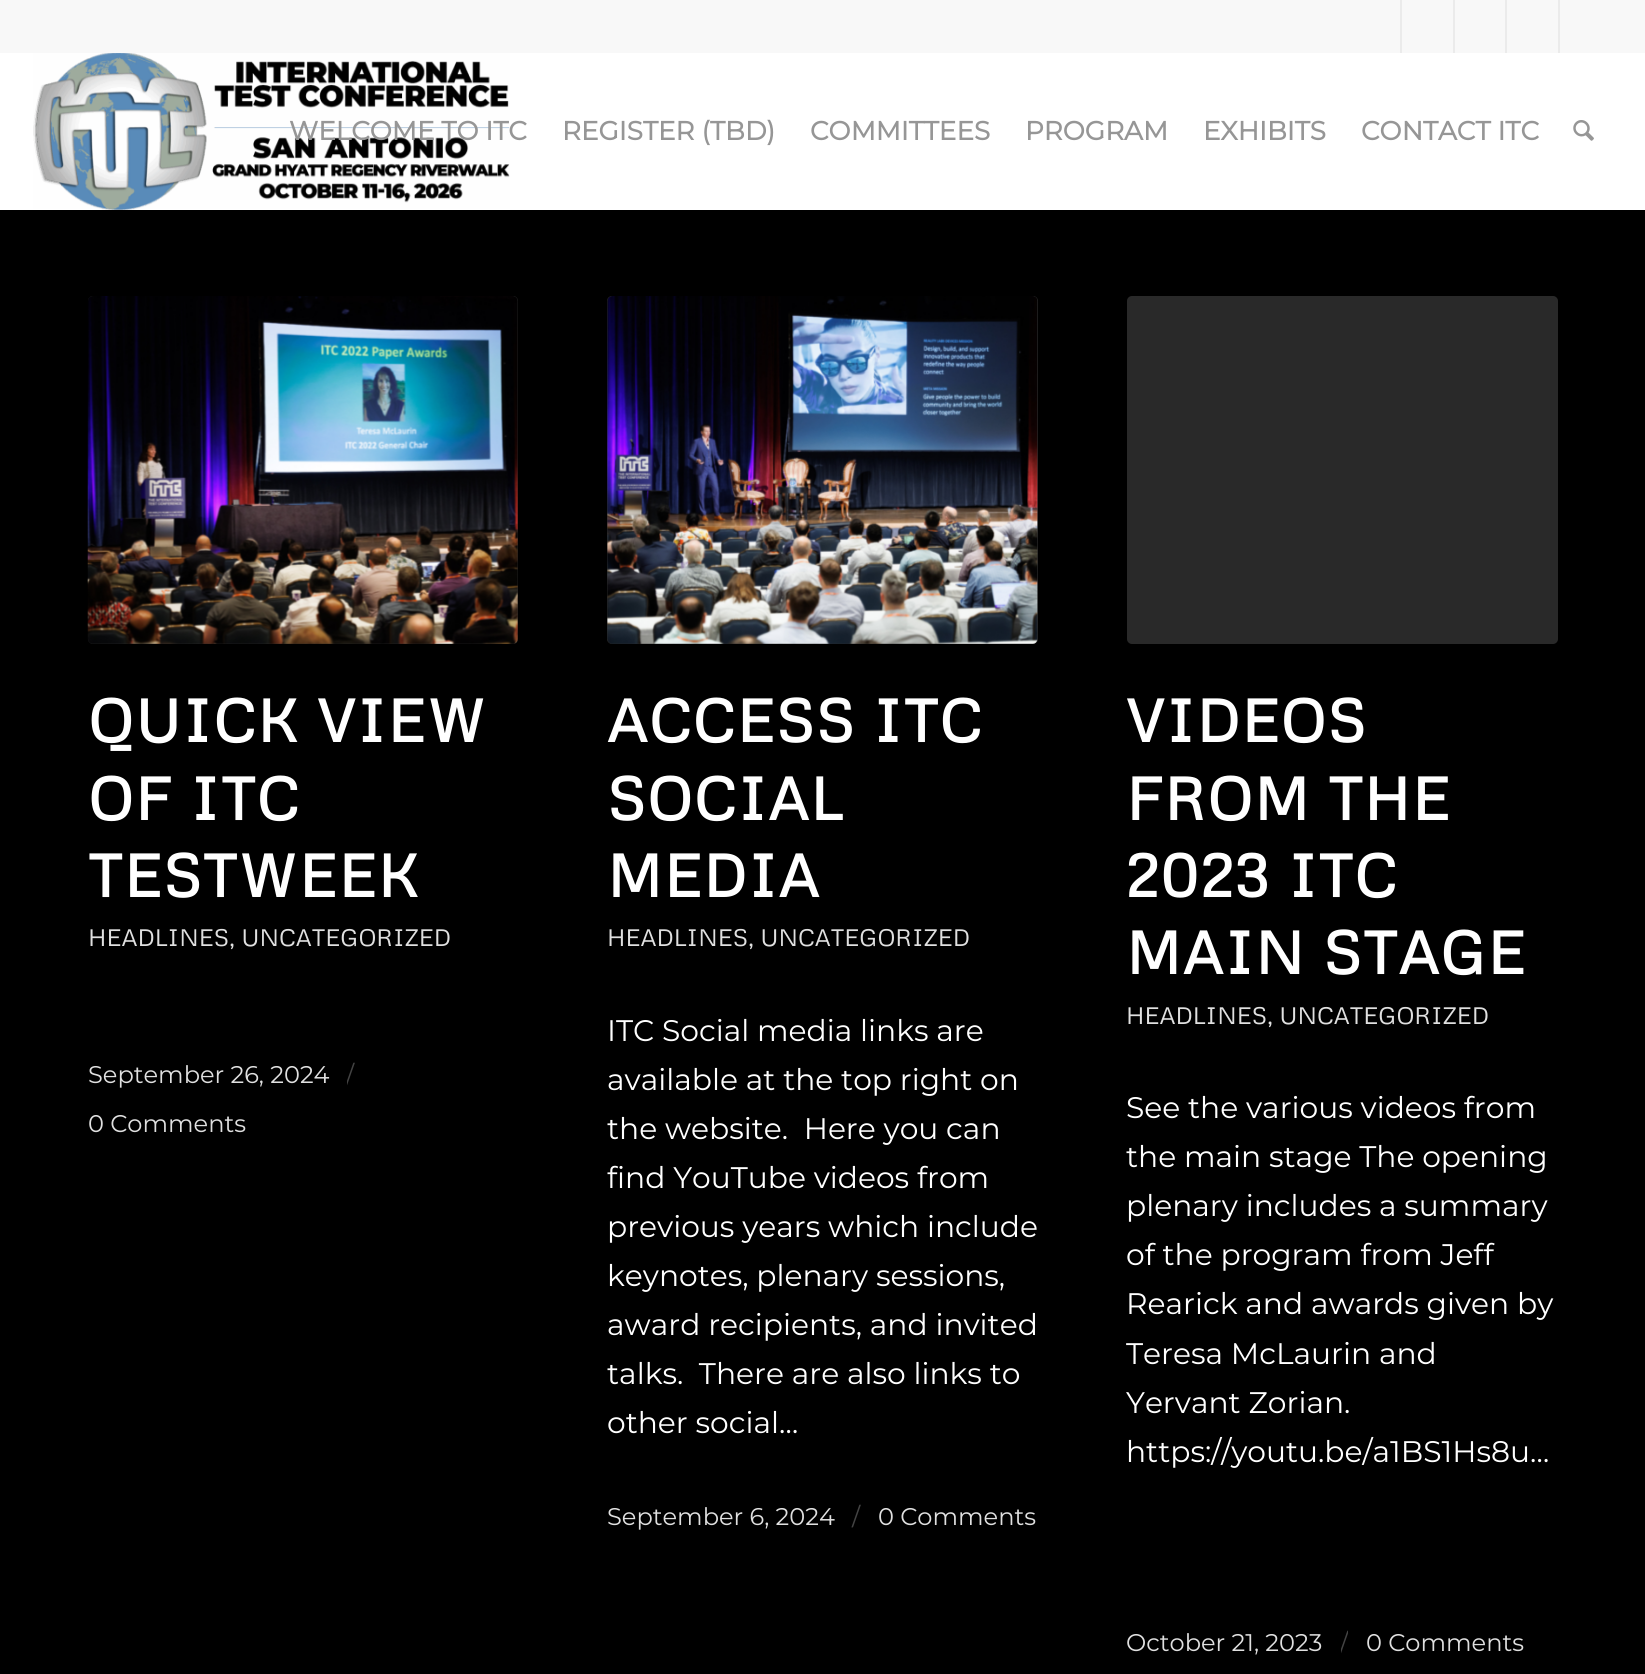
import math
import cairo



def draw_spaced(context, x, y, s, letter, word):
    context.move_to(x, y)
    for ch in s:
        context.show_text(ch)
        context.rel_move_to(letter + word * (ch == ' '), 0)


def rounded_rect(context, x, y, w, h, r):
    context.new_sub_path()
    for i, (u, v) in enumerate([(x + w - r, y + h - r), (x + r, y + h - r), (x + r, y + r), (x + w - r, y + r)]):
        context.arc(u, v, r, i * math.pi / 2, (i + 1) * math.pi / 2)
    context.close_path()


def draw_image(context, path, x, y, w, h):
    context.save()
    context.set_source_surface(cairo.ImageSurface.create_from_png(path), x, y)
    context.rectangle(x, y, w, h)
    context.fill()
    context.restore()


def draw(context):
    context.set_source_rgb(0, 0, 0)
    context.paint()
    context.set_source_rgb(248 / 255, 248 / 255, 248 / 255)
    context.rectangle(0, 0, 1645, 53)
    context.fill()
    context.set_source_rgb(235 / 255, 235 / 255, 235 / 255)
    context.rectangle(1400, 0, 2, 53)
    context.fill()
    context.rectangle(1453, 0, 2, 53)
    context.fill()
    context.rectangle(1505, 0, 2, 53)
    context.fill()
    context.rectangle(1558, 0, 2, 53)
    context.fill()
    context.set_source_rgb(1, 1, 1)
    context.rectangle(0, 53, 1645, 157)
    context.fill()
    draw_image(context, "images/1.png", 33, 53, 477, 157)
    draw_image(context, "images/2.png", 1573, 120, 21, 21)
    context.set_source_rgb(41 / 255, 41 / 255, 41 / 255)
    rounded_rect(context, 88, 296, 430, 348, 5)
    context.fill()
    draw_image(context, "images/3.png", 87, 296, 431, 348)
    rounded_rect(context, 607, 296, 431, 348, 5)
    context.fill()
    draw_image(context, "images/4.png", 607, 296, 431, 348)
    rounded_rect(context, 1127, 296, 431, 348, 5)
    context.fill()
    context.select_font_face("Montserrat", cairo.FontSlant.NORMAL, cairo.FontWeight.BOLD)
    context.set_font_size(26.25)
    context.set_source_rgb(150 / 255, 150 / 255, 150 / 255)
    context.move_to(289, 140)
    context.show_text("WELCOME TO ITC")
    context.move_to(562, 140)
    context.show_text("REGISTER (TBD)")
    context.move_to(810, 140)
    context.show_text("COMMITTEES")
    context.move_to(1025, 140)
    context.show_text("PROGRAM")
    context.move_to(1203, 140)
    context.show_text("EXHIBITS")
    context.move_to(1361, 140)
    context.show_text("CONTACT ITC")
    context.select_font_face("Metrophobic", cairo.FontSlant.NORMAL, cairo.FontWeight.BOLD)
    context.set_font_size(59.5)
    context.set_source_rgb(1, 1, 1)
    draw_spaced(context, 88, 742, "QUICK VIEW", 1.75, 0)
    draw_spaced(context, 88, 820, "OF ITC", 1.75, 0)
    draw_spaced(context, 88, 897, "TESTWEEK", 1.75, 0)
    context.select_font_face("Metrophobic")
    context.set_font_size(23.75)
    context.set_source_rgb(224 / 255, 224 / 255, 224 / 255)
    context.move_to(88, 946)
    context.show_text("HEADLINES, UNCATEGORIZED")
    context.select_font_face("Montserrat Thin")
    context.set_font_size(24.1)
    context.move_to(88, 1083)
    context.show_text("September 26, 2024")
    context.save()
    context.rectangle(347, 1050, 8, 49)
    context.clip()
    context.set_source_rgb(67 / 255, 67 / 255, 67 / 255)
    context.move_to(346, 1083)
    context.show_text("/")
    context.restore()
    context.move_to(88, 1132)
    context.show_text("0 Comments")
    context.select_font_face("Metrophobic", cairo.FontSlant.NORMAL, cairo.FontWeight.BOLD)
    context.set_font_size(59.5)
    context.set_source_rgb(1, 1, 1)
    draw_spaced(context, 607, 742, "ACCESS ITC", 1.75, 0)
    draw_spaced(context, 607, 820, "SOCIAL", 1.75, 0)
    draw_spaced(context, 607, 897, "MEDIA", 1.75, 0)
    context.select_font_face("Metrophobic")
    context.set_font_size(23.75)
    context.set_source_rgb(224 / 255, 224 / 255, 224 / 255)
    context.move_to(607, 946)
    context.show_text("HEADLINES, UNCATEGORIZED")
    context.select_font_face("Montserrat Thin")
    context.set_font_size(29.75)
    context.set_source_rgb(1, 1, 1)
    context.move_to(607, 1041)
    context.show_text("ITC Social media links are")
    context.move_to(607, 1090)
    context.show_text("available at the top right on")
    context.move_to(607, 1139)
    context.show_text("the website.  Here you can")
    context.move_to(607, 1188)
    context.show_text("find YouTube videos from")
    context.move_to(607, 1237)
    context.show_text("previous years which include")
    context.move_to(607, 1286)
    context.show_text("keynotes, plenary sessions,")
    context.move_to(607, 1335)
    context.show_text("award recipients, and invited")
    context.move_to(607, 1384)
    context.show_text("talks.  There are also links to")
    context.move_to(607, 1433)
    context.show_text("other social…")
    context.set_font_size(24.1)
    context.set_source_rgb(224 / 255, 224 / 255, 224 / 255)
    context.move_to(607, 1525)
    context.show_text("September 6, 2024")
    context.set_source_rgb(67 / 255, 67 / 255, 67 / 255)
    context.move_to(852, 1525)
    context.show_text("/")
    context.set_source_rgb(224 / 255, 224 / 255, 224 / 255)
    context.move_to(878, 1525)
    context.show_text("0 Comments")
    context.select_font_face("Metrophobic", cairo.FontSlant.NORMAL, cairo.FontWeight.BOLD)
    context.set_font_size(59.5)
    context.set_source_rgb(1, 1, 1)
    draw_spaced(context, 1126, 742, "VIDEOS", 1.75, 0)
    draw_spaced(context, 1126, 820, "FROM THE", 1.75, 0)
    draw_spaced(context, 1126, 897, "2023 ITC", 1.75, 0)
    draw_spaced(context, 1126, 974, "MAIN STAGE", 1.75, 0)
    context.select_font_face("Metrophobic")
    context.set_font_size(23.75)
    context.set_source_rgb(224 / 255, 224 / 255, 224 / 255)
    context.move_to(1126, 1024)
    context.show_text("HEADLINES, UNCATEGORIZED")
    context.select_font_face("Montserrat Thin")
    context.set_font_size(29.75)
    context.set_source_rgb(1, 1, 1)
    context.move_to(1126, 1118)
    context.show_text("See the various videos from")
    context.move_to(1126, 1167)
    context.show_text("the main stage The opening")
    context.move_to(1126, 1216)
    context.show_text("plenary includes a summary")
    context.move_to(1126, 1265)
    context.show_text("of the program from Jeff")
    context.move_to(1126, 1314)
    context.show_text("Rearick and awards given by")
    context.move_to(1126, 1364)
    context.show_text("Teresa McLaurin and")
    context.move_to(1126, 1413)
    context.show_text("Yervant Zorian.")
    context.move_to(1126, 1462)
    context.show_text("https://youtu.be/a1BS1Hs8u…")
    context.set_font_size(24.1)
    context.set_source_rgb(224 / 255, 224 / 255, 224 / 255)
    context.move_to(1126, 1651)
    context.show_text("October 21, 2023")
    context.save()
    context.rectangle(1341, 1617, 7, 49)
    context.clip()
    context.set_source_rgb(67 / 255, 67 / 255, 67 / 255)
    context.move_to(1340, 1651)
    context.show_text("/")
    context.restore()
    context.move_to(1366, 1651)
    context.show_text("0 Comments")


surface = cairo.ImageSurface(cairo.Format.RGB24, 1645, 1674)
context = cairo.Context(surface)
options = cairo.FontOptions()
options.set_hint_metrics(cairo.HintMetrics.OFF)
options.set_hint_style(cairo.HintStyle.NONE)
context.set_font_options(options)
context.set_miter_limit(4)
draw(context)
surface.write_to_png("out.png")
